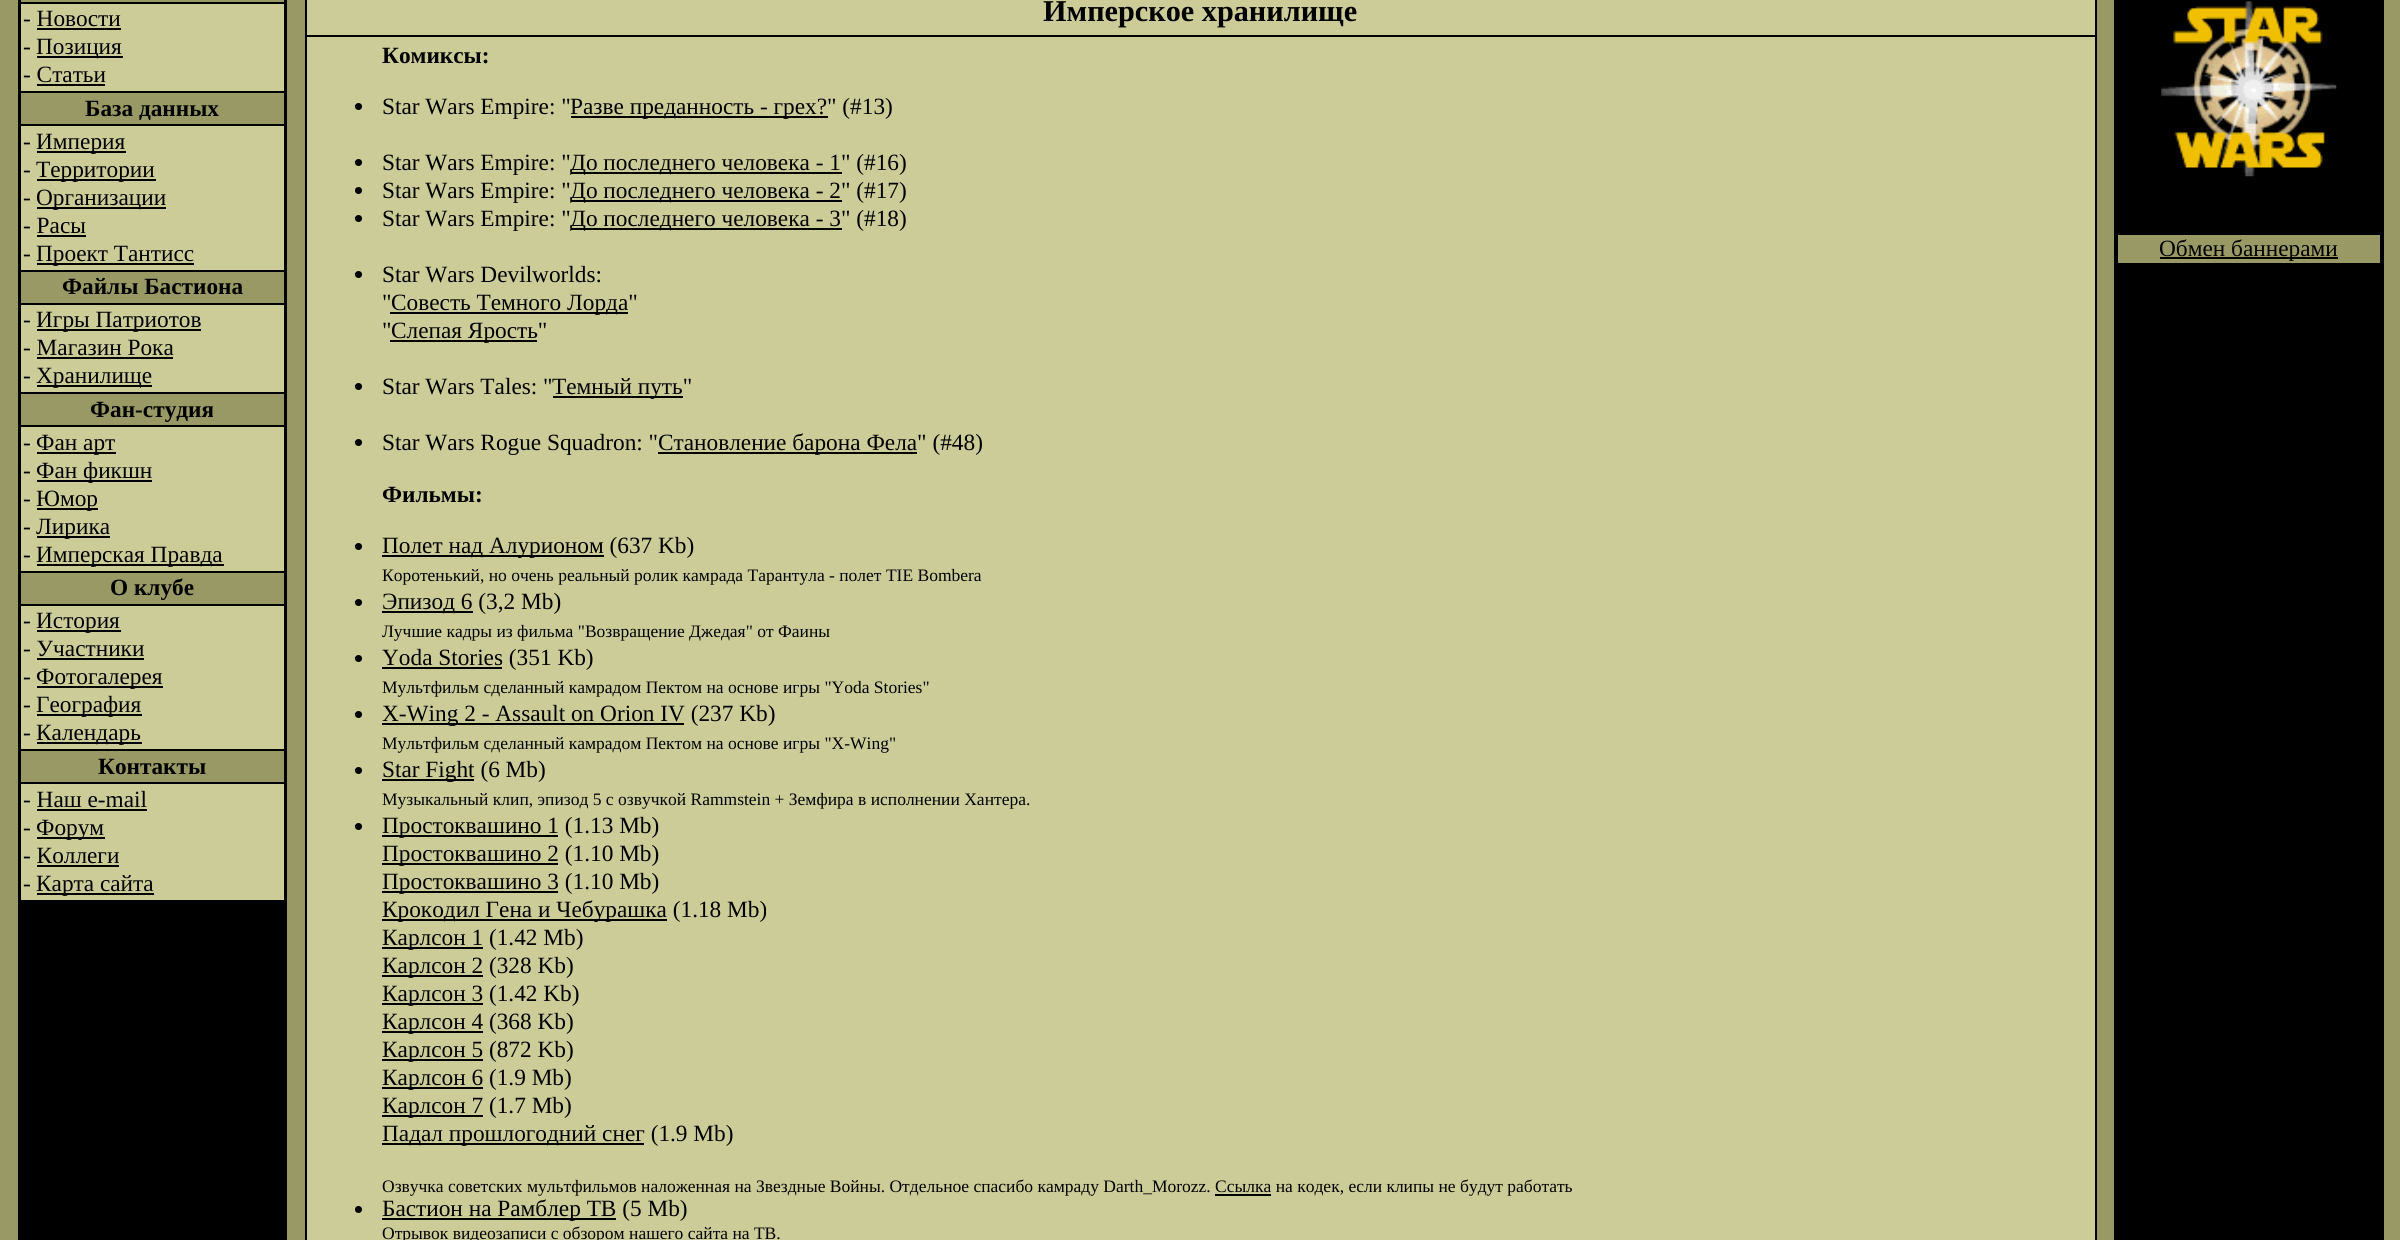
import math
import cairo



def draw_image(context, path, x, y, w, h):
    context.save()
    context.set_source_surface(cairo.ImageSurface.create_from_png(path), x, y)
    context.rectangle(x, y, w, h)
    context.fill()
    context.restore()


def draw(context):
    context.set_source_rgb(0, 0, 0)
    context.paint()
    context.set_source_rgb(153 / 255, 153 / 255, 102 / 255)
    context.rectangle(2384, 0, 16, 1240)
    context.fill()
    context.rectangle(0, 0, 18, 1240)
    context.fill()
    context.rectangle(21, 0, 263, 2)
    context.fill()
    context.set_source_rgb(204 / 255, 204 / 255, 153 / 255)
    context.rectangle(21, 4, 263, 87)
    context.fill()
    context.set_source_rgb(0, 0, 0)
    context.rectangle(37, 28, 84, 2)
    context.fill()
    context.rectangle(37, 56, 86, 2)
    context.fill()
    context.rectangle(37, 84, 68, 2)
    context.fill()
    context.set_source_rgb(153 / 255, 153 / 255, 102 / 255)
    context.rectangle(21, 93, 263, 31)
    context.fill()
    context.set_source_rgb(204 / 255, 204 / 255, 153 / 255)
    context.rectangle(21, 126, 263, 144)
    context.fill()
    context.set_source_rgb(0, 0, 0)
    context.rectangle(37, 151, 89, 2)
    context.fill()
    context.rectangle(37, 179, 119, 2)
    context.fill()
    context.rectangle(37, 207, 129, 2)
    context.fill()
    context.rectangle(37, 235, 49, 2)
    context.fill()
    context.rectangle(37, 263, 157, 2)
    context.fill()
    context.set_source_rgb(153 / 255, 153 / 255, 102 / 255)
    context.rectangle(21, 272, 263, 31)
    context.fill()
    context.set_source_rgb(204 / 255, 204 / 255, 153 / 255)
    context.rectangle(21, 305, 263, 87)
    context.fill()
    context.set_source_rgb(0, 0, 0)
    context.rectangle(37, 329, 164, 2)
    context.fill()
    context.rectangle(37, 357, 136, 2)
    context.fill()
    context.rectangle(37, 385, 115, 2)
    context.fill()
    context.set_source_rgb(153 / 255, 153 / 255, 102 / 255)
    context.rectangle(21, 394, 263, 31)
    context.fill()
    context.set_source_rgb(204 / 255, 204 / 255, 153 / 255)
    context.rectangle(21, 427, 263, 144)
    context.fill()
    context.set_source_rgb(0, 0, 0)
    context.rectangle(37, 452, 79, 2)
    context.fill()
    context.rectangle(37, 480, 115, 2)
    context.fill()
    context.rectangle(37, 508, 61, 2)
    context.fill()
    context.rectangle(37, 536, 73, 2)
    context.fill()
    context.rectangle(37, 564, 187, 2)
    context.fill()
    context.set_source_rgb(153 / 255, 153 / 255, 102 / 255)
    context.rectangle(21, 573, 263, 31)
    context.fill()
    context.set_source_rgb(204 / 255, 204 / 255, 153 / 255)
    context.rectangle(21, 606, 263, 143)
    context.fill()
    context.set_source_rgb(0, 0, 0)
    context.rectangle(37, 630, 84, 2)
    context.fill()
    context.rectangle(37, 658, 107, 2)
    context.fill()
    context.rectangle(37, 686, 126, 2)
    context.fill()
    context.rectangle(37, 714, 105, 2)
    context.fill()
    context.rectangle(37, 742, 105, 2)
    context.fill()
    context.set_source_rgb(153 / 255, 153 / 255, 102 / 255)
    context.rectangle(21, 751, 263, 31)
    context.fill()
    context.set_source_rgb(204 / 255, 204 / 255, 153 / 255)
    context.rectangle(21, 784, 263, 116)
    context.fill()
    context.set_source_rgb(0, 0, 0)
    context.rectangle(37, 809, 110, 2)
    context.fill()
    context.rectangle(37, 837, 68, 2)
    context.fill()
    context.rectangle(37, 865, 82, 2)
    context.fill()
    context.rectangle(37, 893, 117, 2)
    context.fill()
    context.set_source_rgb(153 / 255, 153 / 255, 102 / 255)
    context.rectangle(287, 0, 1827, 1240)
    context.fill()
    context.set_source_rgb(204 / 255, 204 / 255, 153 / 255)
    context.rectangle(307, 0, 1788, 35)
    context.fill()
    context.rectangle(307, 37, 1788, 1203)
    context.fill()
    context.set_source_rgb(0, 0, 0)
    context.rectangle(305, 35, 1792, 2)
    context.fill()
    context.rectangle(2095, 0, 2, 1240)
    context.fill()
    context.rectangle(305, 0, 2, 1240)
    context.fill()
    context.arc(358.5, 106.5, 3.5, 0, 2 * math.pi)
    context.fill()
    context.rectangle(571, 116, 257, 2)
    context.fill()
    context.arc(358.5, 162.5, 3.5, 0, 2 * math.pi)
    context.fill()
    context.rectangle(571, 172, 271, 2)
    context.fill()
    context.arc(358.5, 190.5, 3.5, 0, 2 * math.pi)
    context.fill()
    context.rectangle(571, 200, 271, 2)
    context.fill()
    context.arc(358.5, 218.5, 3.5, 0, 2 * math.pi)
    context.fill()
    context.rectangle(571, 228, 271, 2)
    context.fill()
    context.arc(358.5, 274.5, 3.5, 0, 2 * math.pi)
    context.fill()
    context.rectangle(390, 312, 238, 2)
    context.fill()
    context.rectangle(390, 340, 147, 2)
    context.fill()
    context.arc(358.5, 386.5, 3.5, 0, 2 * math.pi)
    context.fill()
    context.rectangle(553, 396, 130, 2)
    context.fill()
    context.arc(358.5, 442.5, 3.5, 0, 2 * math.pi)
    context.fill()
    context.rectangle(658, 452, 259, 2)
    context.fill()
    context.arc(358.5, 546.5, 3.5, 0, 2 * math.pi)
    context.fill()
    context.rectangle(382, 555, 222, 2)
    context.fill()
    context.arc(358.5, 602.5, 3.5, 0, 2 * math.pi)
    context.fill()
    context.rectangle(382, 611, 91, 2)
    context.fill()
    context.arc(358.5, 658.5, 3.5, 0, 2 * math.pi)
    context.fill()
    context.rectangle(382, 667, 120, 2)
    context.fill()
    context.arc(358.5, 714.5, 3.5, 0, 2 * math.pi)
    context.fill()
    context.rectangle(382, 723, 302, 2)
    context.fill()
    context.arc(358.5, 770.5, 3.5, 0, 2 * math.pi)
    context.fill()
    context.rectangle(382, 779, 92, 2)
    context.fill()
    context.arc(358.5, 826.5, 3.5, 0, 2 * math.pi)
    context.fill()
    context.rectangle(382, 835, 176, 2)
    context.fill()
    context.rectangle(382, 863, 176, 2)
    context.fill()
    context.rectangle(382, 891, 176, 2)
    context.fill()
    context.rectangle(382, 919, 285, 2)
    context.fill()
    context.rectangle(382, 947, 101, 2)
    context.fill()
    context.rectangle(382, 975, 101, 2)
    context.fill()
    context.rectangle(382, 1003, 101, 2)
    context.fill()
    context.rectangle(382, 1031, 101, 2)
    context.fill()
    context.rectangle(382, 1059, 101, 2)
    context.fill()
    context.rectangle(382, 1087, 101, 2)
    context.fill()
    context.rectangle(382, 1115, 101, 2)
    context.fill()
    context.rectangle(382, 1143, 262, 2)
    context.fill()
    context.rectangle(1215, 1194, 56, 2)
    context.fill()
    context.arc(358.5, 1209.5, 3.5, 0, 2 * math.pi)
    context.fill()
    context.rectangle(382, 1218, 234, 2)
    context.fill()
    draw_image(context, "images/1.png", 2161, 1, 176, 176)
    context.set_source_rgb(153 / 255, 153 / 255, 102 / 255)
    context.rectangle(2118, 235, 262, 28)
    context.fill()
    context.set_source_rgb(0, 0, 0)
    context.rectangle(2160, 257, 178, 2)
    context.fill()
    context.select_font_face("Liberation Serif")
    context.set_font_size(23.3)
    context.move_to(23, 26)
    context.show_text("- Новости")
    context.move_to(23, 54)
    context.show_text("-")
    context.move_to(36, 54)
    context.show_text("Позиция")
    context.move_to(23, 82)
    context.show_text("- Статьи")
    context.select_font_face("Liberation Serif", cairo.FontSlant.NORMAL, cairo.FontWeight.BOLD)
    context.move_to(85, 116)
    context.show_text("База данных")
    context.select_font_face("Liberation Serif")
    context.move_to(23, 149)
    context.show_text("-")
    context.move_to(36, 149)
    context.show_text("Империя")
    context.move_to(23, 177)
    context.show_text("-")
    context.move_to(36, 177)
    context.show_text("Территории")
    context.move_to(23, 205)
    context.show_text("-")
    context.move_to(36, 205)
    context.show_text("Организации")
    context.move_to(23, 233)
    context.show_text("- Расы")
    context.move_to(23, 261)
    context.show_text("-")
    context.move_to(36, 261)
    context.show_text("Проект Тантисс")
    context.select_font_face("Liberation Serif", cairo.FontSlant.NORMAL, cairo.FontWeight.BOLD)
    context.move_to(62, 294)
    context.show_text("Файлы Бастиона")
    context.select_font_face("Liberation Serif")
    context.move_to(23, 327)
    context.show_text("-")
    context.move_to(36, 327)
    context.show_text("Игры Патриотов")
    context.move_to(23, 355)
    context.show_text("- Магазин Рока")
    context.move_to(23, 383)
    context.show_text("-")
    context.move_to(36, 383)
    context.show_text("Хранилище")
    context.select_font_face("Liberation Serif", cairo.FontSlant.NORMAL, cairo.FontWeight.BOLD)
    context.move_to(90, 417)
    context.show_text("Фан-студия")
    context.select_font_face("Liberation Serif")
    context.move_to(23, 450)
    context.show_text("-")
    context.move_to(36, 450)
    context.show_text("Фан арт")
    context.move_to(23, 478)
    context.show_text("-")
    context.move_to(36, 478)
    context.show_text("Фан фикшн")
    context.move_to(23, 506)
    context.show_text("-")
    context.move_to(36, 506)
    context.show_text("Юмор")
    context.move_to(23, 534)
    context.show_text("-")
    context.move_to(36, 534)
    context.show_text("Лирика")
    context.move_to(23, 562)
    context.show_text("-")
    context.move_to(36, 562)
    context.show_text("Имперская Правда")
    context.select_font_face("Liberation Serif", cairo.FontSlant.NORMAL, cairo.FontWeight.BOLD)
    context.move_to(110, 595)
    context.show_text("О клубе")
    context.select_font_face("Liberation Serif")
    context.move_to(23, 628)
    context.show_text("-")
    context.move_to(36, 628)
    context.show_text("История")
    context.move_to(23, 656)
    context.show_text("- Участники")
    context.move_to(23, 684)
    context.show_text("-")
    context.move_to(36, 684)
    context.show_text("Фотогалерея")
    context.move_to(23, 712)
    context.show_text("-")
    context.move_to(36, 712)
    context.show_text("География")
    context.move_to(23, 740)
    context.show_text("-")
    context.move_to(36, 740)
    context.show_text("Календарь")
    context.select_font_face("Liberation Serif", cairo.FontSlant.NORMAL, cairo.FontWeight.BOLD)
    context.move_to(98, 774)
    context.show_text("Контакты")
    context.select_font_face("Liberation Serif")
    context.move_to(23, 807)
    context.show_text("- Наш e-mail")
    context.move_to(23, 835)
    context.show_text("-")
    context.move_to(36, 835)
    context.show_text("Форум")
    context.move_to(23, 863)
    context.show_text("- Коллеги")
    context.move_to(23, 891)
    context.show_text("-")
    context.move_to(36, 891)
    context.show_text("Карта сайта")
    context.select_font_face("Liberation Serif", cairo.FontSlant.NORMAL, cairo.FontWeight.BOLD)
    context.set_font_size(30.25)
    context.move_to(1043, 21)
    context.show_text("Имперское хранилище")
    context.set_font_size(23.3)
    context.move_to(382, 63)
    context.show_text("Комиксы:")
    context.select_font_face("Liberation Serif")
    context.move_to(382, 114)
    context.show_text("Star Wars Empire: \"")
    context.move_to(570, 114)
    context.show_text("Разве преданность - грех?\" (#13)")
    context.move_to(382, 170)
    context.show_text("Star Wars Empire: \"")
    context.move_to(570, 170)
    context.show_text("До последнего человека - 1\" (#16)")
    context.move_to(382, 198)
    context.show_text("Star Wars Empire: \"")
    context.move_to(570, 198)
    context.show_text("До последнего человека - 2\" (#17)")
    context.move_to(382, 226)
    context.show_text("Star Wars Empire: \"")
    context.move_to(570, 226)
    context.show_text("До последнего человека - 3\" (#18)")
    context.move_to(382, 282)
    context.show_text("Star Wars Devilworlds:")
    context.move_to(382, 310)
    context.show_text("\"")
    context.move_to(391, 310)
    context.show_text("Совесть Темного Лорда\"")
    context.move_to(382, 338)
    context.show_text("\"")
    context.move_to(391, 338)
    context.show_text("Слепая Ярость\"")
    context.move_to(382, 394)
    context.show_text("Star Wars Tales: \"")
    context.move_to(552, 394)
    context.show_text("Темный путь\"")
    context.move_to(382, 450)
    context.show_text("Star Wars Rogue Squadron: \"")
    context.move_to(658, 450)
    context.show_text("Становление барона Фела\" (#48)")
    context.select_font_face("Liberation Serif", cairo.FontSlant.NORMAL, cairo.FontWeight.BOLD)
    context.move_to(382, 502)
    context.show_text("Фильмы:")
    context.select_font_face("Liberation Serif")
    context.move_to(382, 553)
    context.show_text("Полет над Алурионом (637 Kb)")
    context.set_font_size(17.5)
    context.move_to(382, 581)
    context.show_text("Коротенький, но очень реальный ролик камрада Тарантула - полет TIE Bombera")
    context.set_font_size(23.3)
    context.move_to(382, 609)
    context.show_text("Эпизод 6 (3,2 Mb)")
    context.set_font_size(17.5)
    context.move_to(382, 637)
    context.show_text("Лучшие кадры из фильма \"Возвращение Джедая\" от Фаины")
    context.set_font_size(23.3)
    context.move_to(382, 665)
    context.show_text("Yoda Stories (351 Kb)")
    context.set_font_size(17.5)
    context.move_to(382, 693)
    context.show_text("Мультфильм сделанный камрадом Пектом на основе игры \"Yoda Stories\"")
    context.set_font_size(23.3)
    context.move_to(382, 721)
    context.show_text("X-Wing 2 - Assault on Orion IV (237 Kb)")
    context.set_font_size(17.5)
    context.move_to(382, 749)
    context.show_text("Мультфильм сделанный камрадом Пектом на основе игры \"X-Wing\"")
    context.set_font_size(23.3)
    context.move_to(382, 777)
    context.show_text("Star Fight (6 Mb)")
    context.set_font_size(17.5)
    context.move_to(382, 805)
    context.show_text("Музыкальный клип, эпизод 5 с озвучкой Rammstein + Земфира в исполнении Хантера.")
    context.set_font_size(23.3)
    context.move_to(382, 833)
    context.show_text("Простоквашино 1 (1.13 Mb)")
    context.move_to(382, 861)
    context.show_text("Простоквашино 2 (1.10 Mb)")
    context.move_to(382, 889)
    context.show_text("Простоквашино 3 (1.10 Mb)")
    context.move_to(382, 917)
    context.show_text("Крокодил Гена и Чебурашка (1.18 Mb)")
    context.move_to(382, 945)
    context.show_text("Карлсон 1 (1.42 Mb)")
    context.move_to(382, 973)
    context.show_text("Карлсон 2 (328 Kb)")
    context.move_to(382, 1001)
    context.show_text("Карлсон 3 (1.42 Kb)")
    context.move_to(382, 1029)
    context.show_text("Карлсон 4 (368 Kb)")
    context.move_to(382, 1057)
    context.show_text("Карлсон 5 (872 Kb)")
    context.move_to(382, 1085)
    context.show_text("Карлсон 6 (1.9 Mb)")
    context.move_to(382, 1113)
    context.show_text("Карлсон 7 (1.7 Mb)")
    context.move_to(382, 1141)
    context.show_text("Падал прошлогодний снег (1.9 Mb)")
    context.set_font_size(17.5)
    context.move_to(382, 1192)
    context.show_text("Озвучка советских мультфильмов наложенная на Звездные Войны. Отдельное спасибо камраду Darth_Morozz. Ссылка на кодек, если клипы не будут работать")
    context.set_font_size(23.3)
    context.move_to(382, 1216)
    context.show_text("Бастион на Рамблер ТВ (5 Mb)")
    context.set_font_size(17.5)
    context.move_to(382, 1239)
    context.show_text("Отрывок видеозаписи с обзором нашего сайта на ТВ.")
    context.set_font_size(23.3)
    context.move_to(2159, 256)
    context.show_text("Обмен баннерами")


surface = cairo.ImageSurface(cairo.Format.RGB24, 2400, 1240)
context = cairo.Context(surface)
options = cairo.FontOptions()
options.set_hint_metrics(cairo.HintMetrics.OFF)
options.set_hint_style(cairo.HintStyle.NONE)
context.set_font_options(options)
context.set_miter_limit(4)
draw(context)
surface.write_to_png("out.png")
